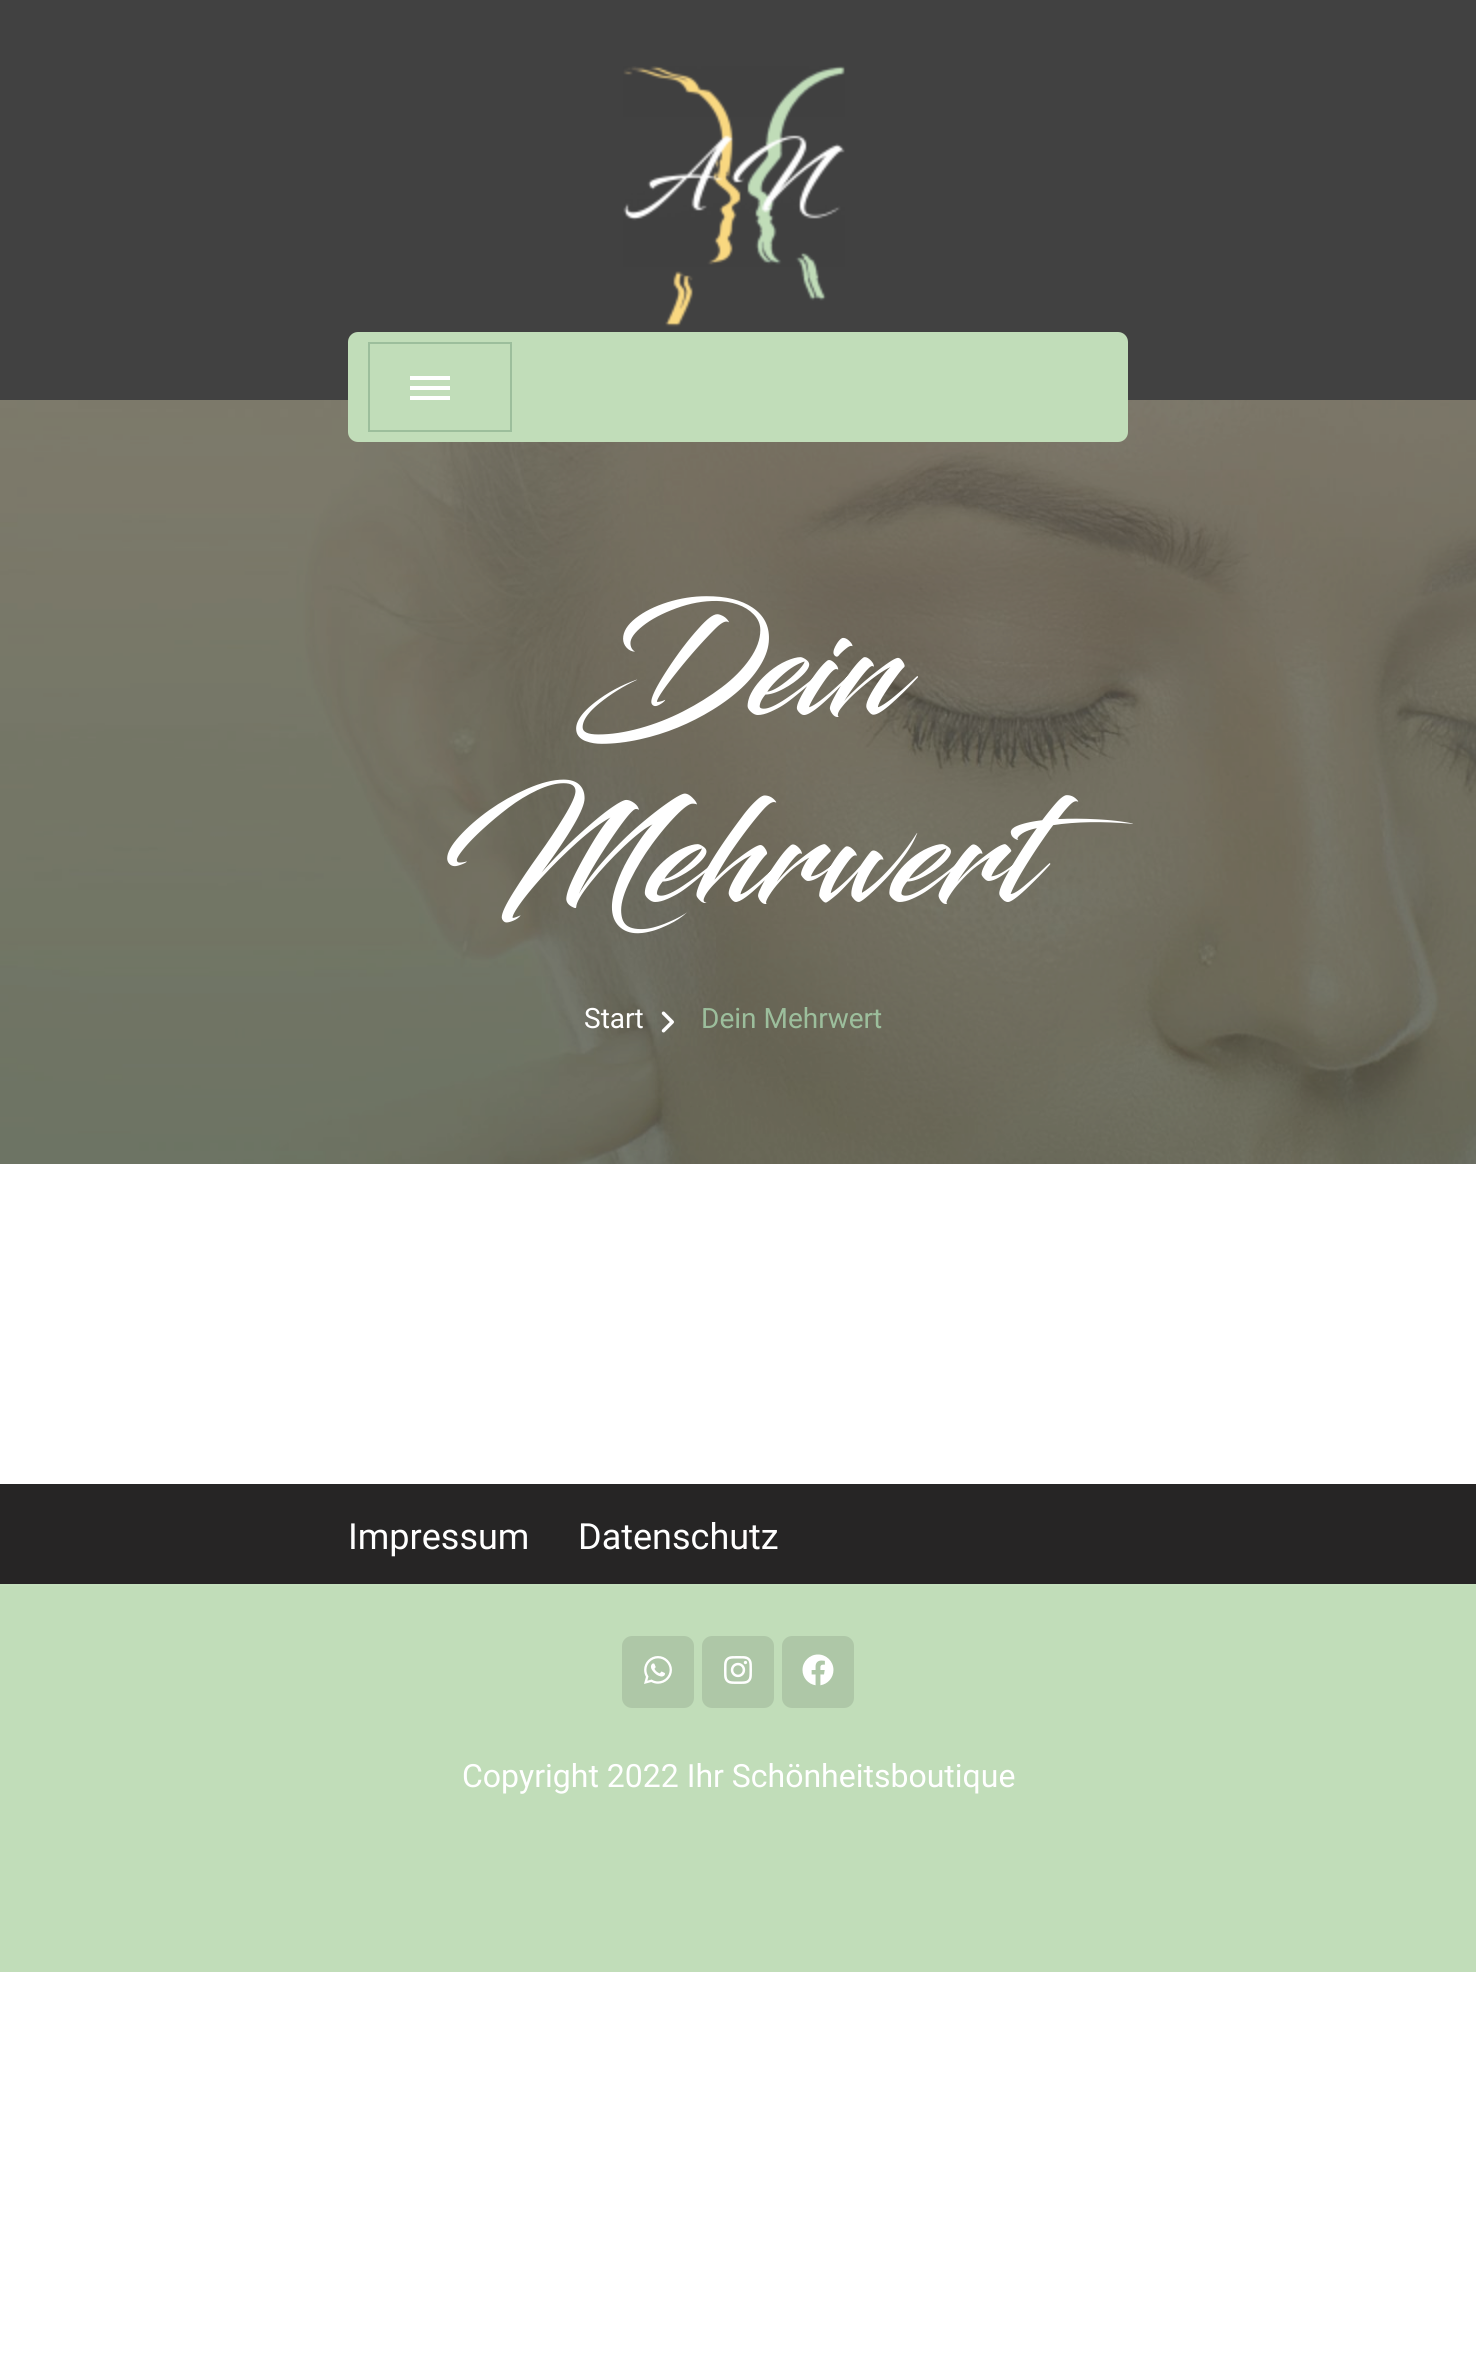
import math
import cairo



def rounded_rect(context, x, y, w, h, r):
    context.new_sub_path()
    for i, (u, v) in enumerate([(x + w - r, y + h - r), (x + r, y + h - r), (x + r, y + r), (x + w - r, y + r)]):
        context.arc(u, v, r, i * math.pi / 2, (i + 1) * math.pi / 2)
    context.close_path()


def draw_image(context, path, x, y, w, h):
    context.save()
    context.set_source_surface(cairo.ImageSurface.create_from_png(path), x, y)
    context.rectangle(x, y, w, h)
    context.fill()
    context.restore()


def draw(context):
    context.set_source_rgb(1, 1, 1)
    context.paint()
    context.set_source_rgb(65 / 255, 65 / 255, 65 / 255)
    context.rectangle(0, 0, 1476, 400)
    context.fill()
    draw_image(context, "images/1.png", 623, 66, 222, 261)
    draw_image(context, "images/2.png", 0, 400, 1476, 764)
    context.set_source_rgb(193 / 255, 221 / 255, 185 / 255)
    rounded_rect(context, 348, 332, 780, 110, 10)
    context.fill()
    context.rectangle(369, 343, 142, 88)
    context.set_source_rgb(156 / 255, 190 / 255, 156 / 255)
    context.stroke()
    context.set_source_rgb(1, 1, 1)
    context.rectangle(410, 376, 40, 4)
    context.fill()
    context.rectangle(410, 386, 40, 4)
    context.fill()
    context.rectangle(410, 396, 40, 4)
    context.fill()
    draw_image(context, "images/3.png", 661, 1011, 13, 22)
    context.set_source_rgb(38 / 255, 37 / 255, 37 / 255)
    context.rectangle(0, 1484, 1476, 100)
    context.fill()
    context.set_source_rgb(193 / 255, 221 / 255, 185 / 255)
    context.rectangle(0, 1586, 1476, 386)
    context.fill()
    context.set_source_rgb(196 / 255, 223 / 255, 189 / 255)
    context.rectangle(0, 1584, 1476, 2)
    context.fill()
    context.set_source_rgb(174 / 255, 199 / 255, 167 / 255)
    rounded_rect(context, 622, 1636, 72, 72, 10)
    context.fill()
    draw_image(context, "images/4.png", 644, 1656, 28, 28)
    rounded_rect(context, 702, 1636, 72, 72, 10)
    context.fill()
    draw_image(context, "images/5.png", 724, 1656, 28, 28)
    rounded_rect(context, 782, 1636, 72, 72, 10)
    context.fill()
    draw_image(context, "images/6.png", 802, 1654, 32, 32)
    context.select_font_face("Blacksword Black")
    context.set_font_size(144)
    context.set_source_rgb(1, 1, 1)
    context.move_to(576, 714)
    context.show_text("Dein")
    context.move_to(441, 901)
    context.show_text("Mehrwert")
    context.select_font_face("Roboto")
    context.set_font_size(28)
    context.move_to(584, 1028)
    context.show_text("Start")
    context.set_source_rgb(156 / 255, 190 / 255, 156 / 255)
    context.move_to(701, 1028)
    context.show_text("Dein Mehrwert")
    context.set_font_size(36)
    context.set_source_rgb(1, 1, 1)
    context.move_to(348, 1549)
    context.show_text("Impressum")
    context.move_to(578, 1549)
    context.show_text("Datenschutz")
    context.set_font_size(32)
    context.move_to(462, 1787)
    context.show_text("Copyright 2022 Ihr Schönheitsboutique")


surface = cairo.ImageSurface(cairo.Format.RGB24, 1476, 2378)
context = cairo.Context(surface)
options = cairo.FontOptions()
options.set_hint_metrics(cairo.HintMetrics.OFF)
options.set_hint_style(cairo.HintStyle.NONE)
context.set_font_options(options)
context.set_miter_limit(4)
draw(context)
surface.write_to_png("out.png")
